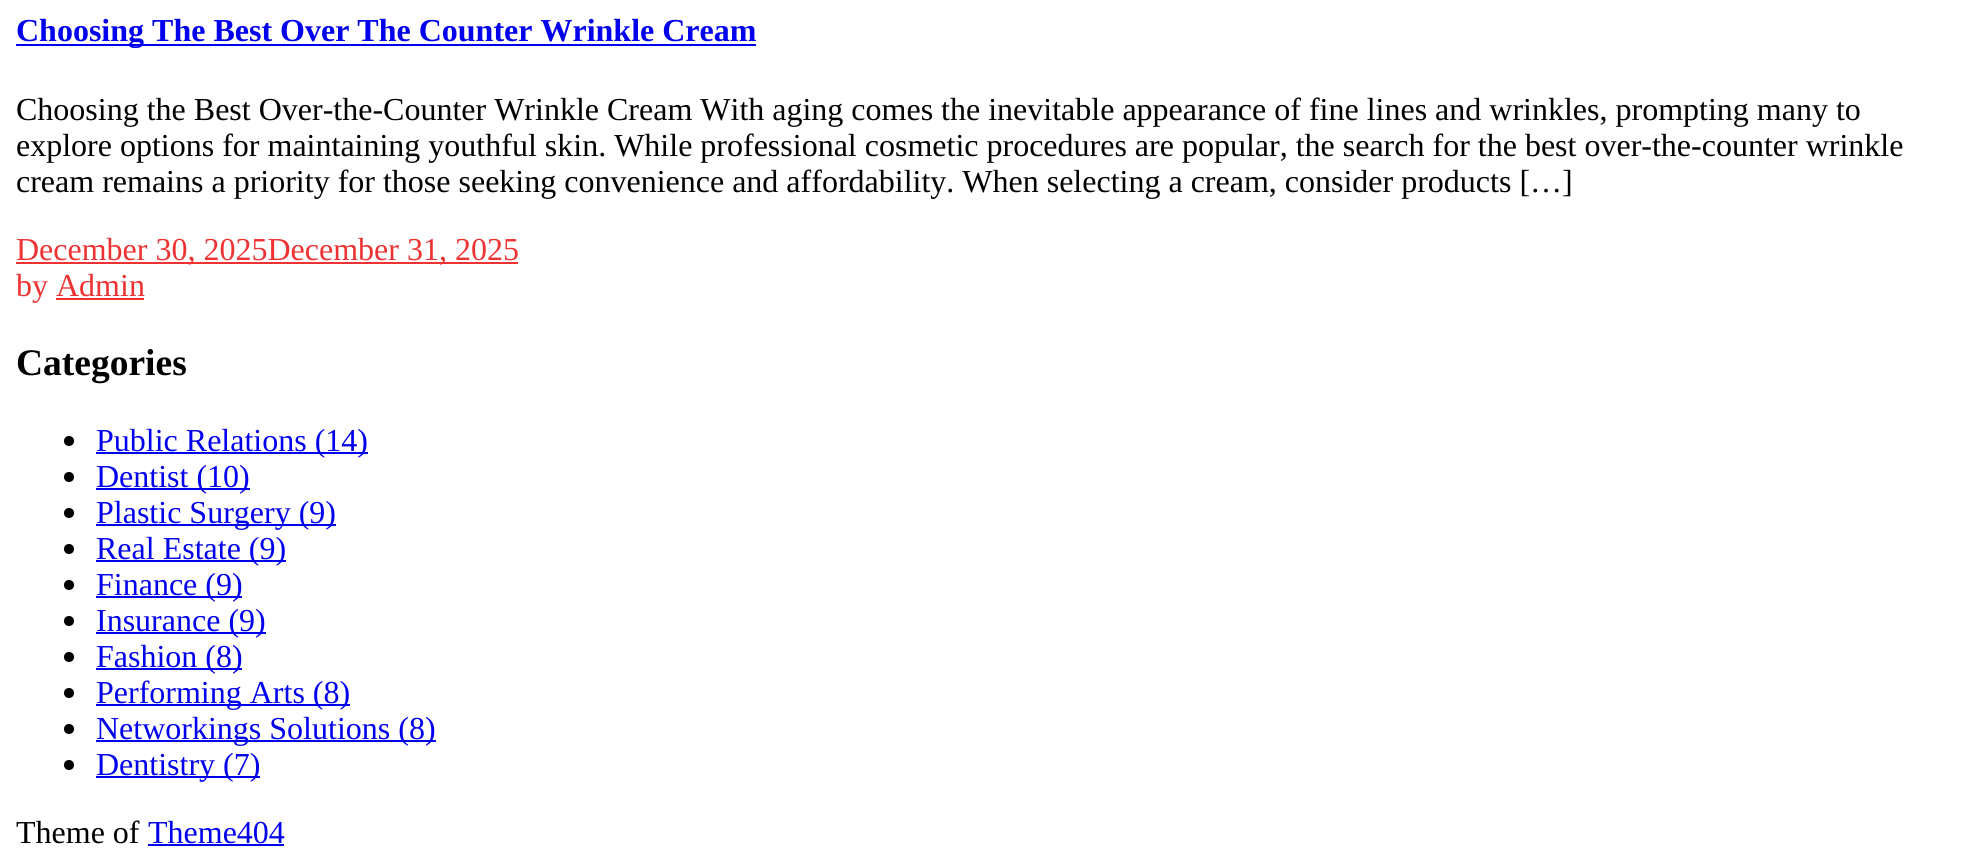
import math
import cairo



def draw(context):
    context.set_source_rgb(1, 1, 1)
    context.paint()
    context.set_source_rgb(0, 0, 238 / 255)
    context.rectangle(16, 44, 740, 2)
    context.fill()
    context.set_source_rgb(238 / 255, 50 / 255, 50 / 255)
    context.rectangle(16, 262, 502, 2)
    context.fill()
    context.rectangle(56, 298, 88, 2)
    context.fill()
    context.set_source_rgb(0, 0, 0)
    context.arc(69, 441, 5, 0, 2 * math.pi)
    context.fill()
    context.set_source_rgb(0, 0, 238 / 255)
    context.rectangle(96, 452, 272, 2)
    context.fill()
    context.set_source_rgb(0, 0, 0)
    context.arc(69, 477, 5, 0, 2 * math.pi)
    context.fill()
    context.set_source_rgb(0, 0, 238 / 255)
    context.rectangle(96, 488, 154, 2)
    context.fill()
    context.set_source_rgb(0, 0, 0)
    context.arc(69, 513, 5, 0, 2 * math.pi)
    context.fill()
    context.set_source_rgb(0, 0, 238 / 255)
    context.rectangle(96, 524, 240, 2)
    context.fill()
    context.set_source_rgb(0, 0, 0)
    context.arc(69, 549, 5, 0, 2 * math.pi)
    context.fill()
    context.set_source_rgb(0, 0, 238 / 255)
    context.rectangle(96, 560, 190, 2)
    context.fill()
    context.set_source_rgb(0, 0, 0)
    context.arc(69, 585, 5, 0, 2 * math.pi)
    context.fill()
    context.set_source_rgb(0, 0, 238 / 255)
    context.rectangle(96, 596, 146, 2)
    context.fill()
    context.set_source_rgb(0, 0, 0)
    context.arc(69, 621, 5, 0, 2 * math.pi)
    context.fill()
    context.set_source_rgb(0, 0, 238 / 255)
    context.rectangle(96, 632, 170, 2)
    context.fill()
    context.set_source_rgb(0, 0, 0)
    context.arc(69, 657, 5, 0, 2 * math.pi)
    context.fill()
    context.set_source_rgb(0, 0, 238 / 255)
    context.rectangle(96, 668, 146, 2)
    context.fill()
    context.set_source_rgb(0, 0, 0)
    context.arc(69, 693, 5, 0, 2 * math.pi)
    context.fill()
    context.set_source_rgb(0, 0, 238 / 255)
    context.rectangle(96, 704, 254, 2)
    context.fill()
    context.set_source_rgb(0, 0, 0)
    context.arc(69, 729, 5, 0, 2 * math.pi)
    context.fill()
    context.set_source_rgb(0, 0, 238 / 255)
    context.rectangle(96, 740, 340, 2)
    context.fill()
    context.set_source_rgb(0, 0, 0)
    context.arc(69, 765, 5, 0, 2 * math.pi)
    context.fill()
    context.set_source_rgb(0, 0, 238 / 255)
    context.rectangle(96, 776, 164, 2)
    context.fill()
    context.rectangle(148, 844, 136, 2)
    context.fill()
    context.select_font_face("Liberation Serif", cairo.FontSlant.NORMAL, cairo.FontWeight.BOLD)
    context.set_font_size(32)
    context.move_to(16, 41)
    context.show_text("Choosing The Best Over The Counter Wrinkle Cream")
    context.select_font_face("Liberation Serif")
    context.set_source_rgb(0, 0, 0)
    context.move_to(16, 120)
    context.show_text("Choosing the Best Over-the-Counter Wrinkle Cream With aging comes the inevitable appearance of fine lines and wrinkles, prompting many to")
    context.move_to(16, 156)
    context.show_text("explore options for maintaining youthful skin. While professional cosmetic procedures are popular, the search for the best over-the-counter wrinkle")
    context.move_to(16, 192)
    context.show_text("cream remains a priority for those seeking convenience and affordability. When selecting a cream, consider products […]")
    context.set_source_rgb(238 / 255, 50 / 255, 50 / 255)
    context.move_to(16, 260)
    context.show_text("December 30, 2025December 31, 2025")
    context.move_to(16, 296)
    context.show_text("by Admin")
    context.select_font_face("Liberation Serif", cairo.FontSlant.NORMAL, cairo.FontWeight.BOLD)
    context.set_font_size(37.5)
    context.set_source_rgb(0, 0, 0)
    context.move_to(16, 375)
    context.show_text("Categories")
    context.select_font_face("Liberation Serif")
    context.set_font_size(32)
    context.set_source_rgb(0, 0, 238 / 255)
    context.move_to(96, 451)
    context.show_text("Public Relations (14)")
    context.move_to(96, 487)
    context.show_text("Dentist (10)")
    context.move_to(96, 523)
    context.show_text("Plastic Surgery (9)")
    context.move_to(96, 559)
    context.show_text("Real Estate (9)")
    context.move_to(96, 595)
    context.show_text("Finance (9)")
    context.move_to(96, 631)
    context.show_text("Insurance (9)")
    context.move_to(96, 667)
    context.show_text("Fashion (8)")
    context.move_to(96, 703)
    context.show_text("Performing Arts (8)")
    context.move_to(96, 739)
    context.show_text("Networkings Solutions (8)")
    context.move_to(96, 775)
    context.show_text("Dentistry (7)")
    context.set_source_rgb(0, 0, 0)
    context.move_to(16, 843)
    context.show_text("Theme of")
    context.set_source_rgb(0, 0, 238 / 255)
    context.move_to(148, 843)
    context.show_text("Theme404")


surface = cairo.ImageSurface(cairo.Format.RGB24, 1961, 866)
context = cairo.Context(surface)
options = cairo.FontOptions()
options.set_hint_metrics(cairo.HintMetrics.OFF)
options.set_hint_style(cairo.HintStyle.NONE)
context.set_font_options(options)
context.set_miter_limit(4)
draw(context)
surface.write_to_png("out.png")
